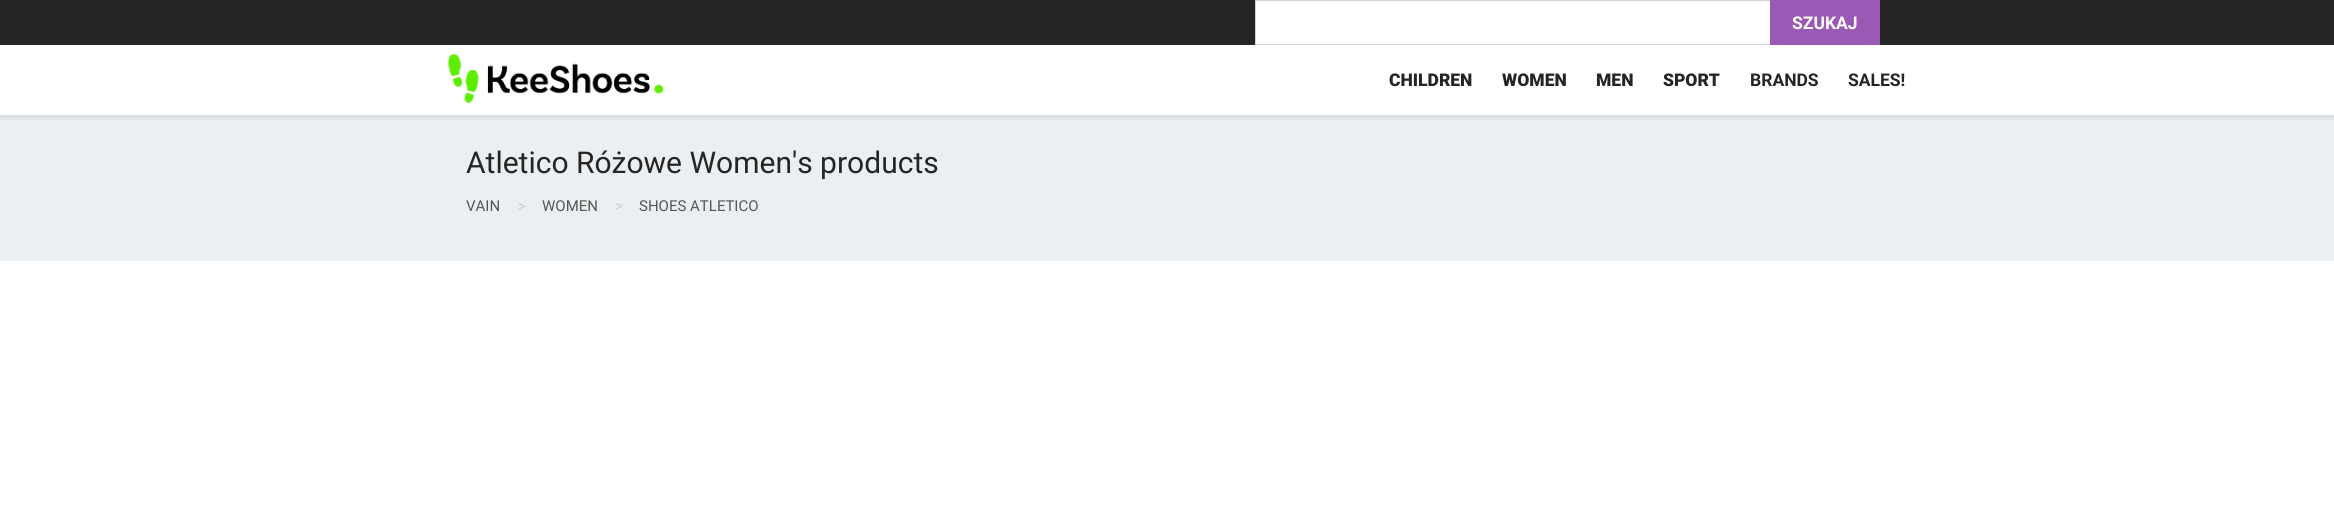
import math
import cairo



def rounded_rect(context, x, y, w, h, r):
    context.new_sub_path()
    for i, (u, v) in enumerate([(x + w - r, y + h - r), (x + r, y + h - r), (x + r, y + r), (x + w - r, y + r)]):
        context.arc(u, v, r, i * math.pi / 2, (i + 1) * math.pi / 2)
    context.close_path()


def draw_shadow(context, x, y, w, h, r, blur, alpha):
    context.push_group_with_content(cairo.Content.ALPHA)
    context.set_operator(cairo.Operator.SOURCE)
    for i in range(15, -16, -2):
        e = blur * i / 6
        if min(w, h) + 2 * e > 0:
            context.set_source_rgba(0, 0, 0, alpha * math.erfc((i - 1) / 8.5) / 2)
            rounded_rect(context, x - e, y - e, w + 2 * e, h + 2 * e, max(0, min(r + e + blur * .6, min(w, h) / 2 + e)))
            context.fill()
    context.mask(context.pop_group())


def draw_image(context, path, x, y, w, h):
    context.save()
    context.set_source_surface(cairo.ImageSurface.create_from_png(path), x, y)
    context.rectangle(x, y, w, h)
    context.fill()
    context.restore()


def draw(context):
    context.set_source_rgb(1, 1, 1)
    context.paint()
    context.set_source_rgb(37 / 255, 37 / 255, 37 / 255)
    context.rectangle(0, 0, 2334, 45)
    context.fill()
    context.set_source_rgb(1, 1, 1)
    context.rectangle(1256, 1, 514, 43)
    context.fill()
    context.rectangle(1255.5, 0.5, 624, 44)
    context.set_source_rgb(206 / 255, 212 / 255, 218 / 255)
    context.set_line_width(1)
    context.stroke()
    context.set_source_rgb(236 / 255, 239 / 255, 241 / 255)
    context.rectangle(0, 115, 2334, 146)
    context.fill()
    context.save()
    context.rectangle(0, 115, 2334, 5)
    context.clip()
    context.set_source_rgb(0, 0, 0)
    draw_shadow(context, 0, 48, 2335, 70, 0, 2.5, 0.1)
    context.restore()
    context.set_source_rgb(155 / 255, 89 / 255, 182 / 255)
    context.rectangle(1770, 0, 110, 45)
    context.fill()
    draw_image(context, "images/1.png", 447, 54, 217, 50)
    context.select_font_face("Roboto", cairo.FontSlant.NORMAL, cairo.FontWeight.BOLD)
    context.set_font_size(17.5)
    context.set_source_rgb(1, 1, 1)
    context.move_to(1792, 29)
    context.show_text("SZUKAJ")
    context.select_font_face("Roboto Black")
    context.set_source_rgb(37 / 255, 37 / 255, 37 / 255)
    context.move_to(1389, 86)
    context.show_text("CHILDREN")
    context.move_to(1502, 86)
    context.show_text("WOMEN")
    context.move_to(1596, 86)
    context.show_text("MEN")
    context.move_to(1663, 86)
    context.show_text("SPORT")
    context.select_font_face("Roboto", cairo.FontSlant.NORMAL, cairo.FontWeight.BOLD)
    context.move_to(1750, 86)
    context.show_text("BRANDS")
    context.move_to(1848, 86)
    context.show_text("SALES!")
    context.select_font_face("Roboto")
    context.set_font_size(30)
    context.move_to(466, 173)
    context.show_text("Atletico Różowe Women's products")
    context.set_font_size(15)
    context.set_source_rgb(86 / 255, 86 / 255, 86 / 255)
    context.move_to(466, 211)
    context.show_text("VAIN")
    context.set_source_rgb(204 / 255, 204 / 255, 204 / 255)
    context.move_to(518, 211)
    context.show_text(">")
    context.set_source_rgb(86 / 255, 86 / 255, 86 / 255)
    context.move_to(542, 211)
    context.show_text("WOMEN")
    context.set_source_rgb(204 / 255, 204 / 255, 204 / 255)
    context.move_to(615, 211)
    context.show_text(">")
    context.set_source_rgb(86 / 255, 86 / 255, 86 / 255)
    context.move_to(639, 211)
    context.show_text("SHOES ATLETICO")


surface = cairo.ImageSurface(cairo.Format.RGB24, 2334, 511)
context = cairo.Context(surface)
options = cairo.FontOptions()
options.set_hint_metrics(cairo.HintMetrics.OFF)
options.set_hint_style(cairo.HintStyle.NONE)
context.set_font_options(options)
context.set_miter_limit(4)
draw(context)
surface.write_to_png("out.png")
